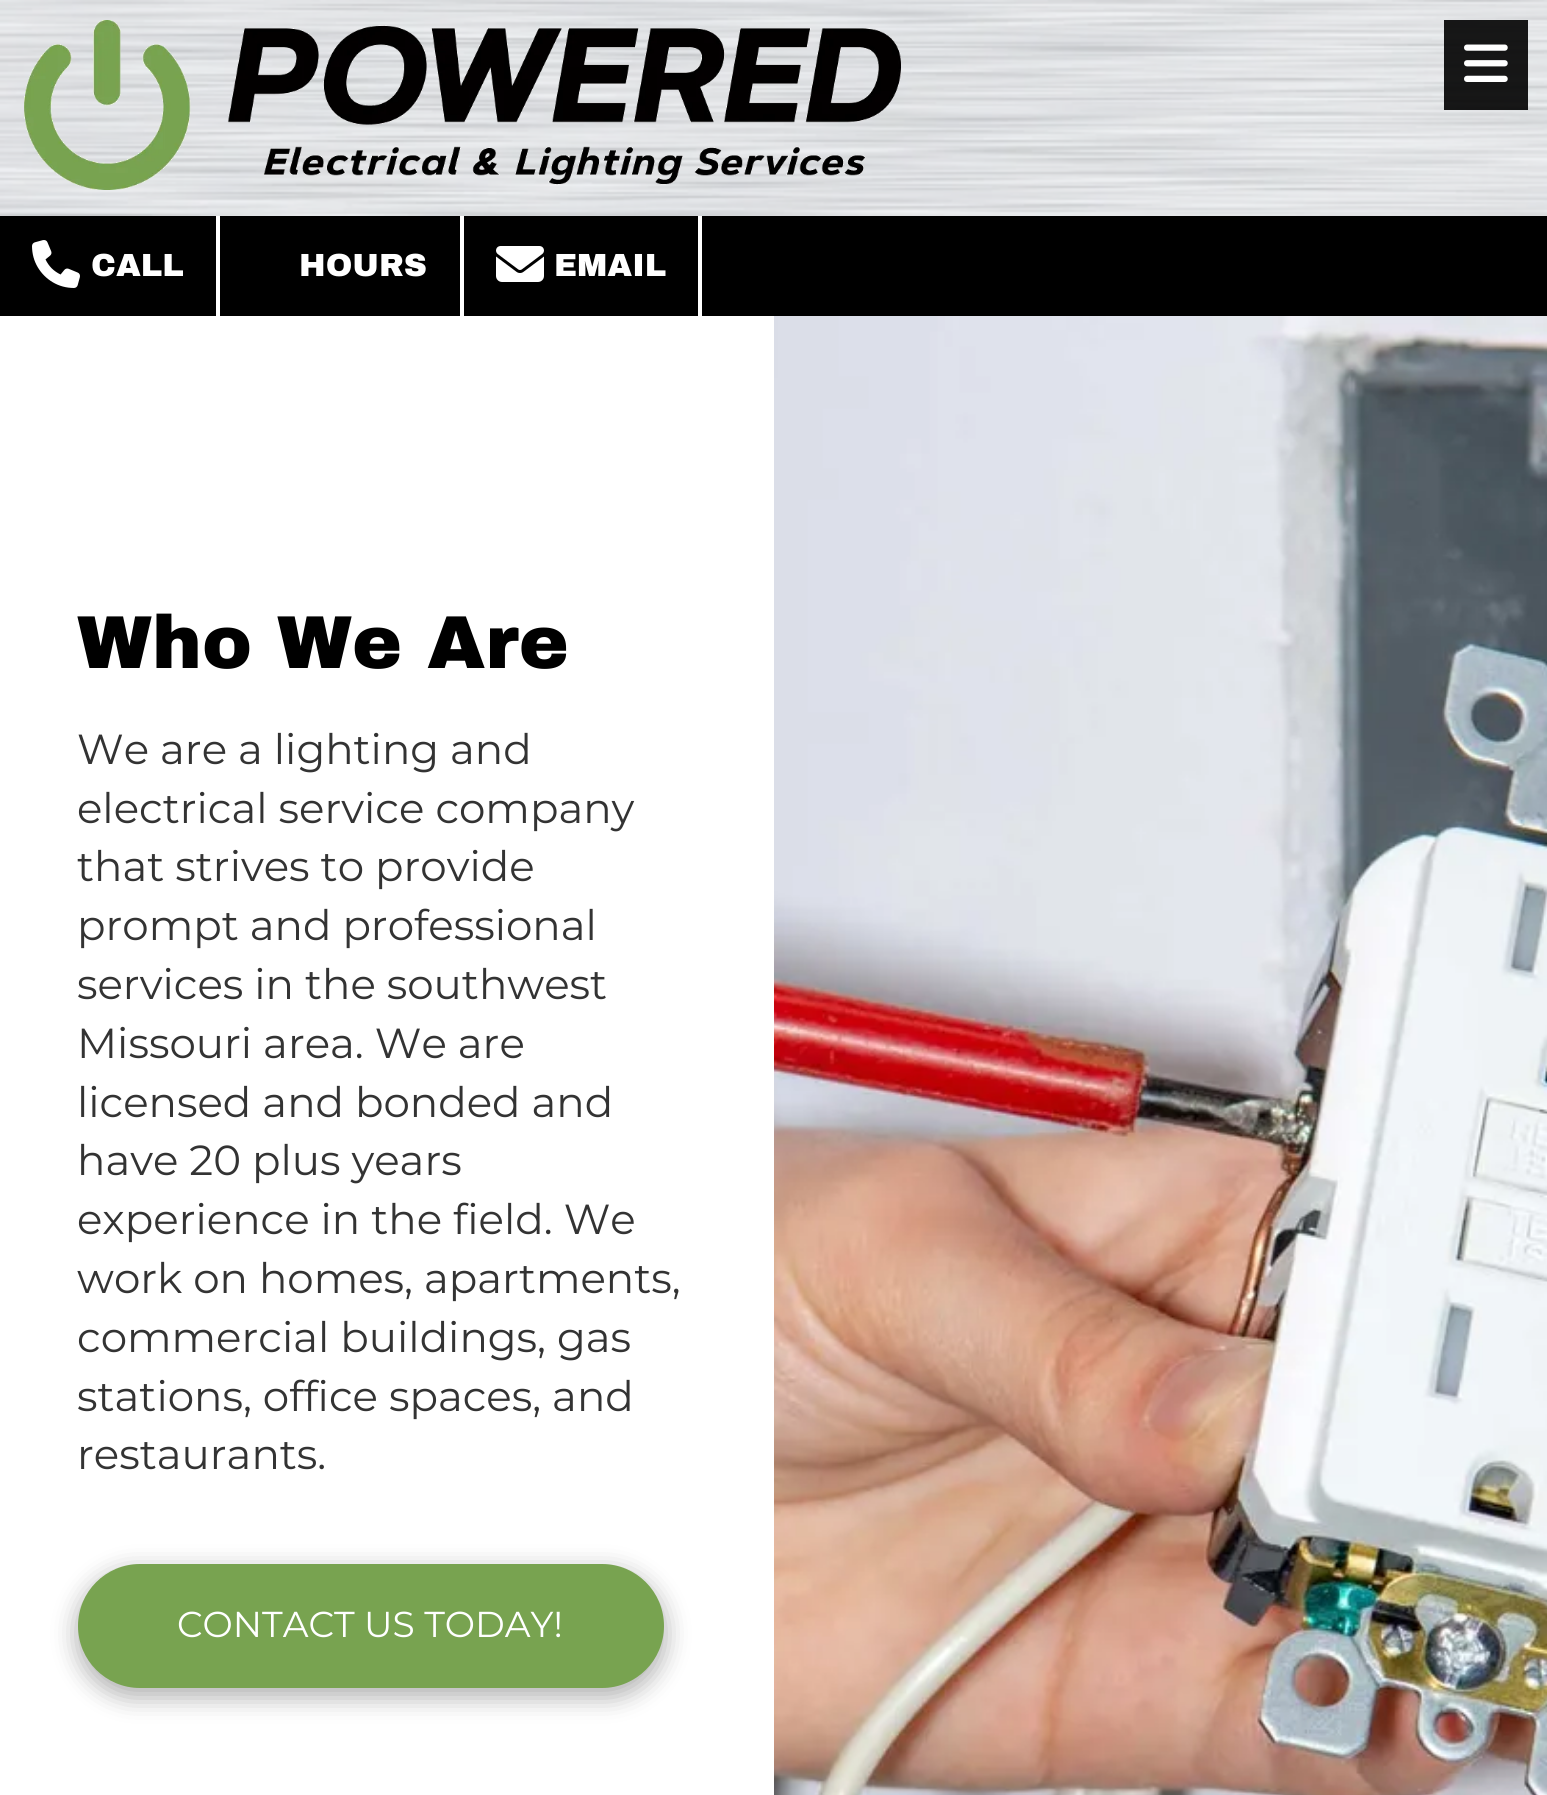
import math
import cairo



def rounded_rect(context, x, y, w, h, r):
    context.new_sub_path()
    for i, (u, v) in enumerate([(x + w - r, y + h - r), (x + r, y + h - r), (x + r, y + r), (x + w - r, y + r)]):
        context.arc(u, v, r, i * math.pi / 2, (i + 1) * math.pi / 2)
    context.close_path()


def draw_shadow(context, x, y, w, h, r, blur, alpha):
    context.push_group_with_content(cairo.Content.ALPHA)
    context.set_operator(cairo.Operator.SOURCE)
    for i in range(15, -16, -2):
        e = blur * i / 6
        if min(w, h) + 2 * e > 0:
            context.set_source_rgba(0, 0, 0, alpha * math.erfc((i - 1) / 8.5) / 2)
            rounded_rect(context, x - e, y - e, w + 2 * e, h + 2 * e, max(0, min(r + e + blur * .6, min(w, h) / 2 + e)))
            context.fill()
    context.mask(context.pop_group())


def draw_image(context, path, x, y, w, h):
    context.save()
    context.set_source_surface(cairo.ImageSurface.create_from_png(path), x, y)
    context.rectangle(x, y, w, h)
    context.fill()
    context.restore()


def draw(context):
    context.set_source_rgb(1, 1, 1)
    context.paint()
    draw_image(context, "images/1.png", 0, 0, 1547, 216)
    context.set_source_rgba(247 / 255, 247 / 255, 247 / 255, 0.6)
    context.rectangle(0, 0, 1547, 216)
    context.fill()
    draw_image(context, "images/2.png", 24, 20, 877, 170)
    context.set_source_rgba(0, 0, 0, 0.9)
    context.rectangle(1444, 20, 84, 90)
    context.fill()
    draw_image(context, "images/3.png", 1464, 44, 44, 38)
    context.set_source_rgb(0, 0, 0)
    context.rectangle(0, 216, 1547, 100)
    context.fill()
    context.set_source_rgb(1, 1, 1)
    context.rectangle(216, 216, 4, 100)
    context.fill()
    draw_image(context, "images/4.png", 32, 240, 48, 48)
    context.rectangle(460, 216, 4, 100)
    context.fill()
    context.rectangle(698, 216, 4, 100)
    context.fill()
    draw_image(context, "images/5.png", 496, 246, 48, 36)
    context.set_source_rgb(0, 0, 0)
    draw_shadow(context, 76, 1570, 590, 128, 64, 12, 0.3)
    context.set_source_rgb(120 / 255, 163 / 255, 80 / 255)
    rounded_rect(context, 78, 1564, 586, 124, 62)
    context.fill()
    draw_image(context, "images/6.png", 774, 316, 773, 1479)
    context.select_font_face("Archivo Black Black")
    context.set_font_size(32)
    context.set_source_rgb(1, 1, 1)
    context.move_to(91, 276)
    context.show_text("CALL")
    context.move_to(299, 276)
    context.show_text("HOURS")
    context.move_to(554, 276)
    context.show_text("EMAIL")
    context.set_font_size(75)
    context.set_source_rgb(0, 0, 0)
    context.move_to(77, 668)
    context.show_text("Who We Are")
    context.select_font_face("Montserrat")
    context.set_font_size(42)
    context.set_source_rgb(51 / 255, 51 / 255, 51 / 255)
    context.move_to(77, 764)
    context.show_text("We are a lighting and")
    context.move_to(77, 823)
    context.show_text("electrical service company")
    context.move_to(77, 881)
    context.show_text("that strives to provide")
    context.move_to(77, 940)
    context.show_text("prompt and professional")
    context.move_to(77, 999)
    context.show_text("services in the southwest")
    context.move_to(77, 1058)
    context.show_text("Missouri area. We are")
    context.move_to(77, 1117)
    context.show_text("licensed and bonded and")
    context.move_to(77, 1175)
    context.show_text("have 20 plus years")
    context.move_to(77, 1234)
    context.show_text("experience in the field. We")
    context.move_to(77, 1293)
    context.show_text("work on homes, apartments,")
    context.move_to(77, 1352)
    context.show_text("commercial buildings, gas")
    context.move_to(77, 1411)
    context.show_text("stations, office spaces, and")
    context.move_to(77, 1469)
    context.show_text("restaurants.")
    context.set_font_size(36)
    context.set_source_rgb(1, 1, 1)
    context.move_to(177, 1637)
    context.show_text("CONTACT US TODAY!")


surface = cairo.ImageSurface(cairo.Format.RGB24, 1547, 1795)
context = cairo.Context(surface)
options = cairo.FontOptions()
options.set_hint_metrics(cairo.HintMetrics.OFF)
options.set_hint_style(cairo.HintStyle.NONE)
context.set_font_options(options)
context.set_miter_limit(4)
draw(context)
surface.write_to_png("out.png")
